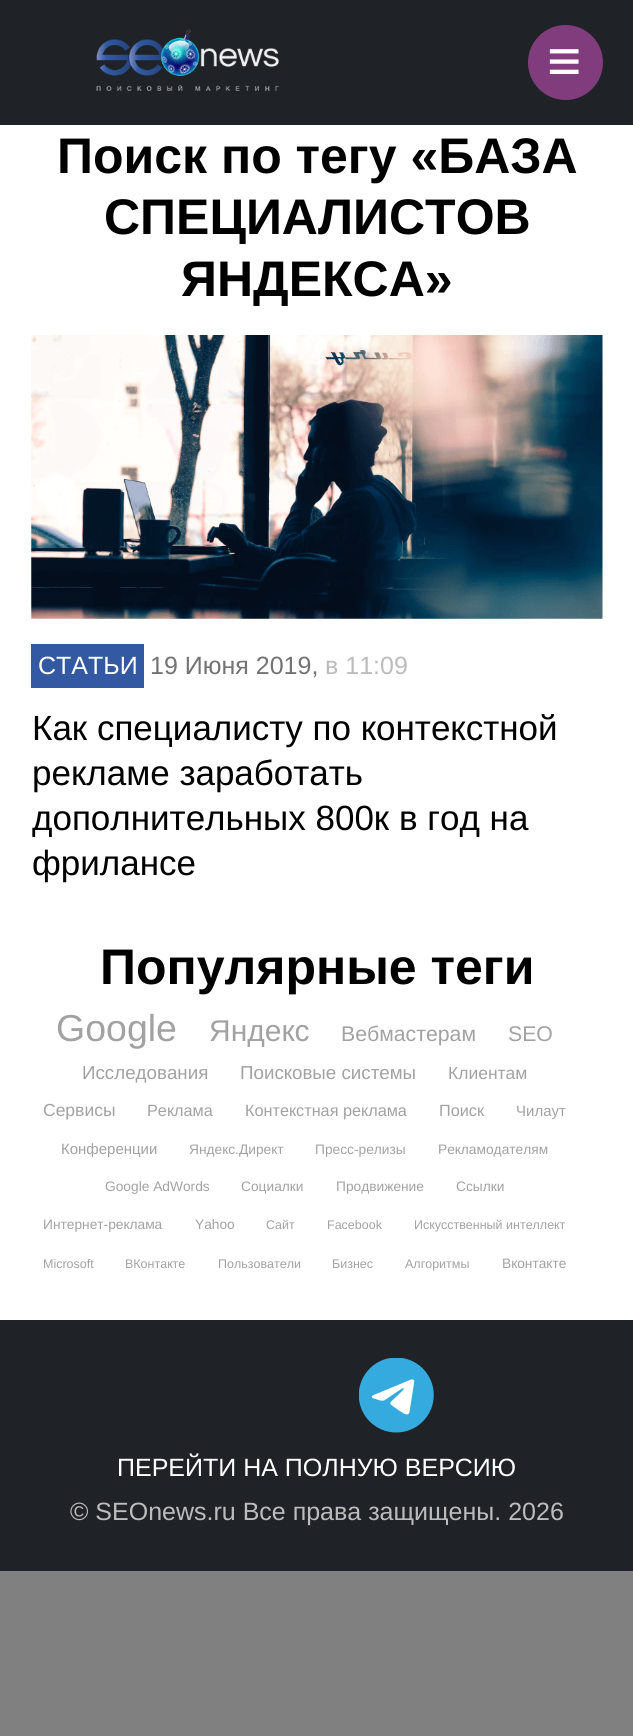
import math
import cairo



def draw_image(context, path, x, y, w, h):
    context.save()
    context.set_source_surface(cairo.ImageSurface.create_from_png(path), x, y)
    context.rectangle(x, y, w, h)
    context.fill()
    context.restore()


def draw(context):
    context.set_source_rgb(128 / 255, 128 / 255, 128 / 255)
    context.paint()
    context.set_source_rgb(1, 1, 1)
    context.rectangle(0, 125, 633, 1195)
    context.fill()
    context.set_source_rgb(31 / 255, 34 / 255, 38 / 255)
    context.rectangle(0, 0, 633, 125)
    context.fill()
    draw_image(context, "images/1.png", 96, 29, 183, 62)
    context.set_source_rgb(129 / 255, 60 / 255, 126 / 255)
    context.arc(565.5, 62.5, 37.5, 0, 2 * math.pi)
    context.fill()
    draw_image(context, "images/2.png", 31, 335, 572, 284)
    context.set_source_rgb(51 / 255, 89 / 255, 163 / 255)
    context.rectangle(31, 644, 113, 44)
    context.fill()
    context.set_source_rgb(31 / 255, 34 / 255, 38 / 255)
    context.rectangle(0, 1320, 633, 251)
    context.fill()
    draw_image(context, "images/3.png", 359, 1358, 75, 75)
    context.select_font_face("Liberation Sans")
    context.set_font_size(59)
    context.set_source_rgb(1, 1, 1)
    context.move_to(547, 81)
    context.show_text("≡")
    context.select_font_face("Liberation Sans", cairo.FontSlant.NORMAL, cairo.FontWeight.BOLD)
    context.set_font_size(50)
    context.set_source_rgb(0, 0, 0)
    context.move_to(57, 173)
    context.show_text("Поиск по тегу «БАЗА")
    context.move_to(104, 234)
    context.show_text("СПЕЦИАЛИСТОВ")
    context.move_to(181, 296)
    context.show_text("ЯНДЕКСА»")
    context.select_font_face("Liberation Sans")
    context.set_font_size(25)
    context.set_source_rgb(1, 1, 1)
    context.move_to(38, 674)
    context.show_text("СТАТЬИ")
    context.set_source_rgb(115 / 255, 115 / 255, 115 / 255)
    context.move_to(150, 674)
    context.show_text("19 Июня 2019,")
    context.set_source_rgb(188 / 255, 188 / 255, 188 / 255)
    context.move_to(325, 674)
    context.show_text("в 11:09")
    context.set_font_size(35)
    context.set_source_rgb(0, 0, 0)
    context.move_to(32, 740)
    context.show_text("Как специалисту по контекстной")
    context.move_to(32, 785)
    context.show_text("рекламе заработать")
    context.move_to(32, 830)
    context.show_text("дополнительных 800к в год на")
    context.move_to(32, 875)
    context.show_text("фрилансе")
    context.select_font_face("Liberation Sans", cairo.FontSlant.NORMAL, cairo.FontWeight.BOLD)
    context.set_font_size(50)
    context.move_to(100, 984)
    context.show_text("Популярные теги")
    context.select_font_face("Liberation Sans")
    context.set_font_size(37.5)
    context.set_source_rgb(162 / 255, 162 / 255, 162 / 255)
    context.move_to(56, 1041)
    context.show_text("Google")
    context.set_font_size(30)
    context.move_to(209, 1041)
    context.show_text("Яндекс")
    context.set_font_size(21.25)
    context.move_to(341, 1041)
    context.show_text("Вебмастерам")
    context.move_to(508, 1041)
    context.show_text("SEO")
    context.set_font_size(18.75)
    context.move_to(82, 1079)
    context.show_text("Исследования")
    context.move_to(240, 1079)
    context.show_text("Поисковые системы")
    context.set_font_size(17.5)
    context.move_to(448, 1079)
    context.show_text("Клиентам")
    context.move_to(43, 1116)
    context.show_text("Сервисы")
    context.set_font_size(16.25)
    context.move_to(147, 1116)
    context.show_text("Реклама")
    context.move_to(245, 1116)
    context.show_text("Контекстная реклама")
    context.move_to(439, 1116)
    context.show_text("Поиск")
    context.set_font_size(15)
    context.move_to(516, 1116)
    context.show_text("Чилаут")
    context.move_to(61, 1154)
    context.show_text("Конференции")
    context.set_font_size(13.75)
    context.move_to(189, 1154)
    context.show_text("Яндекс.Директ")
    context.move_to(315, 1154)
    context.show_text("Пресс-релизы")
    context.move_to(438, 1154)
    context.show_text("Рекламодателям")
    context.move_to(105, 1191)
    context.show_text("Google AdWords")
    context.move_to(241, 1191)
    context.show_text("Социалки")
    context.move_to(336, 1191)
    context.show_text("Продвижение")
    context.move_to(456, 1191)
    context.show_text("Ссылки")
    context.move_to(43, 1229)
    context.show_text("Интернет-реклама")
    context.move_to(195, 1229)
    context.show_text("Yahoo")
    context.set_font_size(12.5)
    context.move_to(266, 1229)
    context.show_text("Сайт")
    context.move_to(327, 1229)
    context.show_text("Facebook")
    context.move_to(414, 1229)
    context.show_text("Искусственный интеллект")
    context.move_to(43, 1268)
    context.show_text("Microsoft")
    context.move_to(125, 1268)
    context.show_text("ВКонтакте")
    context.move_to(218, 1268)
    context.show_text("Пользователи")
    context.move_to(332, 1268)
    context.show_text("Бизнес")
    context.move_to(405, 1268)
    context.show_text("Алгоритмы")
    context.set_font_size(13.75)
    context.move_to(502, 1268)
    context.show_text("Вконтакте")
    context.set_font_size(25)
    context.set_source_rgb(1, 1, 1)
    context.move_to(117, 1476)
    context.show_text("ПЕРЕЙТИ НА ПОЛНУЮ ВЕРСИЮ")
    context.set_source_rgb(188 / 255, 188 / 255, 188 / 255)
    context.move_to(70, 1520)
    context.show_text("© SEOnews.ru Все права защищены. 2026")


surface = cairo.ImageSurface(cairo.Format.RGB24, 633, 1736)
context = cairo.Context(surface)
options = cairo.FontOptions()
options.set_hint_metrics(cairo.HintMetrics.OFF)
options.set_hint_style(cairo.HintStyle.NONE)
context.set_font_options(options)
context.set_miter_limit(4)
draw(context)
surface.write_to_png("out.png")
